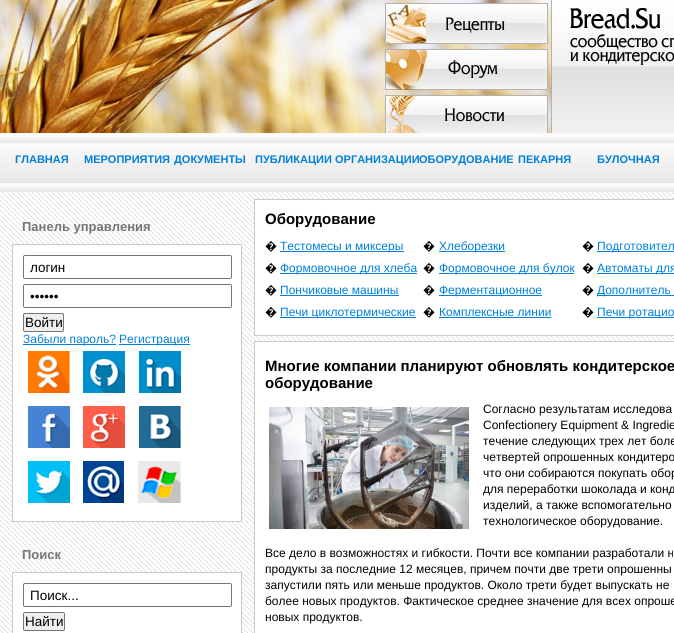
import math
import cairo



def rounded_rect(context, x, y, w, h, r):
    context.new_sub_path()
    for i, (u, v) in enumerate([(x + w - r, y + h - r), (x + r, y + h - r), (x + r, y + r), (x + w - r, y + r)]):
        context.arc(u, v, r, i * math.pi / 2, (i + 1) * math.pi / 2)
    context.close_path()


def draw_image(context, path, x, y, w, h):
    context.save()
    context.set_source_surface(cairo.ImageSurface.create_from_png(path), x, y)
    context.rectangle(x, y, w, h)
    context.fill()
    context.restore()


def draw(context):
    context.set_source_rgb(1, 1, 1)
    context.paint()
    draw_image(context, "images/1.png", 0, 192, 674, 441)
    draw_image(context, "images/2.png", 552, 0, 122, 133)
    context.set_source_rgb(179 / 255, 179 / 255, 179 / 255)
    context.rectangle(551, 0, 1, 133)
    context.fill()
    draw_image(context, "images/3.png", 0, 0, 551, 133)
    draw_image(context, "images/4.png", 385, 3, 163, 41)
    draw_image(context, "images/5.png", 385, 49, 163, 41)
    draw_image(context, "images/6.png", 385, 95, 163, 38)
    draw_image(context, "images/7.png", 570, 8, 90, 21)
    draw_image(context, "images/8.png", 570, 34, 104, 31)
    draw_image(context, "images/9.png", 0, 133, 674, 59)
    context.set_source_rgb(1, 1, 1)
    context.rectangle(12.5, 244.5, 229, 277)
    context.fill_preserve()
    context.set_source_rgb(195 / 255, 206 / 255, 207 / 255)
    context.set_line_width(1)
    context.stroke()
    rounded_rect(context, 23.5, 255.5, 208, 23, 1.5)
    context.set_source_rgb(118 / 255, 118 / 255, 118 / 255)
    context.stroke()
    rounded_rect(context, 23.5, 284.5, 208, 23, 1.5)
    context.stroke()
    context.set_source_rgb(239 / 255, 239 / 255, 239 / 255)
    rounded_rect(context, 23.5, 313.5, 40, 18, 1.5)
    context.fill_preserve()
    context.set_source_rgb(118 / 255, 118 / 255, 118 / 255)
    context.stroke()
    context.set_source_rgb(0, 128 / 255, 218 / 255)
    context.rectangle(23, 344, 93, 1)
    context.fill()
    context.rectangle(119, 344, 71, 1)
    context.fill()
    draw_image(context, "images/10.png", 28, 351, 42, 42)
    draw_image(context, "images/11.png", 83, 351, 42, 42)
    draw_image(context, "images/12.png", 139, 351, 42, 42)
    draw_image(context, "images/13.png", 28, 406, 42, 42)
    draw_image(context, "images/14.png", 83, 406, 42, 42)
    draw_image(context, "images/15.png", 139, 406, 42, 42)
    draw_image(context, "images/16.png", 28, 461, 42, 42)
    draw_image(context, "images/17.png", 83, 461, 41, 42)
    draw_image(context, "images/18.png", 138, 461, 43, 42)
    context.set_source_rgb(1, 1, 1)
    context.rectangle(12.5, 572.5, 229, 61)
    context.fill_preserve()
    context.set_source_rgb(195 / 255, 206 / 255, 207 / 255)
    context.stroke()
    rounded_rect(context, 23.5, 583.5, 208, 23, 1.5)
    context.set_source_rgb(118 / 255, 118 / 255, 118 / 255)
    context.stroke()
    context.set_source_rgb(239 / 255, 239 / 255, 239 / 255)
    rounded_rect(context, 23.5, 612.5, 41, 18, 1.5)
    context.fill_preserve()
    context.set_source_rgb(118 / 255, 118 / 255, 118 / 255)
    context.stroke()
    context.set_source_rgb(1, 1, 1)
    context.rectangle(254.5, 199.5, 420, 136)
    context.fill_preserve()
    context.set_source_rgb(195 / 255, 206 / 255, 207 / 255)
    context.stroke()
    context.set_source_rgb(0, 128 / 255, 218 / 255)
    context.rectangle(280, 251, 124, 1)
    context.fill()
    context.rectangle(439, 251, 66, 1)
    context.fill()
    context.rectangle(597, 251, 77, 1)
    context.fill()
    context.rectangle(280, 273, 137, 1)
    context.fill()
    context.rectangle(439, 273, 135, 1)
    context.fill()
    context.rectangle(597, 273, 77, 1)
    context.fill()
    context.rectangle(280, 295, 119, 1)
    context.fill()
    context.rectangle(439, 295, 103, 1)
    context.fill()
    context.rectangle(597, 295, 77, 1)
    context.fill()
    context.rectangle(280, 317, 136, 1)
    context.fill()
    context.rectangle(439, 317, 112, 1)
    context.fill()
    context.rectangle(597, 317, 77, 1)
    context.fill()
    context.set_source_rgb(1, 1, 1)
    context.rectangle(254.5, 341.5, 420, 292)
    context.fill_preserve()
    context.set_source_rgb(195 / 255, 206 / 255, 207 / 255)
    context.stroke()
    draw_image(context, "images/19.png", 269, 407, 200, 122)
    context.select_font_face("Liberation Sans", cairo.FontSlant.NORMAL, cairo.FontWeight.BOLD)
    context.set_font_size(11)
    context.set_source_rgb(0, 128 / 255, 218 / 255)
    context.move_to(15, 163)
    context.show_text("ГЛАВНАЯ")
    context.move_to(84, 163)
    context.show_text("МЕРОПРИЯТИЯ")
    context.move_to(174, 163)
    context.show_text("ДОКУМЕНТЫ")
    context.move_to(255, 163)
    context.show_text("ПУБЛИКАЦИИ")
    context.move_to(335, 163)
    context.show_text("ОРГАНИЗАЦИИ")
    context.move_to(419, 163)
    context.show_text("ОБОРУДОВАНИЕ")
    context.move_to(518, 163)
    context.show_text("ПЕКАРНЯ")
    context.move_to(597, 163)
    context.show_text("БУЛОЧНАЯ")
    context.set_font_size(13)
    context.set_source_rgb(118 / 255, 118 / 255, 118 / 255)
    context.move_to(22, 231)
    context.show_text("Панель управления")
    context.select_font_face("Liberation Sans")
    context.set_font_size(13.5)
    context.set_source_rgb(0, 0, 0)
    context.move_to(30, 272)
    context.show_text("логин")
    context.move_to(30, 301)
    context.show_text("••••••")
    context.move_to(25, 327)
    context.show_text("Войти")
    context.set_font_size(12)
    context.set_source_rgb(0, 128 / 255, 218 / 255)
    context.move_to(23, 343)
    context.show_text("Забыли пароль?")
    context.move_to(119, 343)
    context.show_text("Регистрация")
    context.select_font_face("Liberation Sans", cairo.FontSlant.NORMAL, cairo.FontWeight.BOLD)
    context.set_font_size(13)
    context.set_source_rgb(118 / 255, 118 / 255, 118 / 255)
    context.move_to(22, 559)
    context.show_text("Поиск")
    context.select_font_face("Liberation Sans")
    context.set_font_size(13.5)
    context.set_source_rgb(0, 0, 0)
    context.move_to(30, 600)
    context.show_text("Поиск...")
    context.move_to(25, 626)
    context.show_text("Найти")
    context.select_font_face("Liberation Sans", cairo.FontSlant.NORMAL, cairo.FontWeight.BOLD)
    context.set_font_size(15)
    context.move_to(265, 224)
    context.show_text("Оборудование")
    context.select_font_face("Noto Sans")
    context.set_font_size(12)
    context.move_to(265, 250)
    context.show_text("�")
    context.select_font_face("Liberation Sans")
    context.set_source_rgb(0, 128 / 255, 218 / 255)
    context.move_to(280, 250)
    context.show_text("Тестомесы и миксеры")
    context.select_font_face("Noto Sans")
    context.set_source_rgb(0, 0, 0)
    context.move_to(423, 250)
    context.show_text("�")
    context.select_font_face("Liberation Sans")
    context.set_source_rgb(0, 128 / 255, 218 / 255)
    context.move_to(439, 250)
    context.show_text("Хлеборезки")
    context.select_font_face("Noto Sans")
    context.set_source_rgb(0, 0, 0)
    context.move_to(582, 250)
    context.show_text("�")
    context.select_font_face("Liberation Sans")
    context.set_source_rgb(0, 128 / 255, 218 / 255)
    context.move_to(597, 250)
    context.show_text("Подготовител")
    context.select_font_face("Noto Sans")
    context.set_source_rgb(0, 0, 0)
    context.move_to(265, 272)
    context.show_text("�")
    context.select_font_face("Liberation Sans")
    context.set_source_rgb(0, 128 / 255, 218 / 255)
    context.move_to(280, 272)
    context.show_text("Формовочное для хлеба")
    context.select_font_face("Noto Sans")
    context.set_source_rgb(0, 0, 0)
    context.move_to(423, 272)
    context.show_text("�")
    context.select_font_face("Liberation Sans")
    context.set_source_rgb(0, 128 / 255, 218 / 255)
    context.move_to(439, 272)
    context.show_text("Формовочное для булок")
    context.select_font_face("Noto Sans")
    context.set_source_rgb(0, 0, 0)
    context.move_to(582, 272)
    context.show_text("�")
    context.select_font_face("Liberation Sans")
    context.set_source_rgb(0, 128 / 255, 218 / 255)
    context.move_to(597, 272)
    context.show_text("Автоматы для")
    context.select_font_face("Noto Sans")
    context.set_source_rgb(0, 0, 0)
    context.move_to(265, 294)
    context.show_text("�")
    context.select_font_face("Liberation Sans")
    context.set_source_rgb(0, 128 / 255, 218 / 255)
    context.move_to(280, 294)
    context.show_text("Пончиковые машины")
    context.select_font_face("Noto Sans")
    context.set_source_rgb(0, 0, 0)
    context.move_to(423, 294)
    context.show_text("�")
    context.select_font_face("Liberation Sans")
    context.set_source_rgb(0, 128 / 255, 218 / 255)
    context.move_to(439, 294)
    context.show_text("Ферментационное")
    context.select_font_face("Noto Sans")
    context.set_source_rgb(0, 0, 0)
    context.move_to(582, 294)
    context.show_text("�")
    context.select_font_face("Liberation Sans")
    context.set_source_rgb(0, 128 / 255, 218 / 255)
    context.move_to(597, 294)
    context.show_text("Дополнитель")
    context.select_font_face("Noto Sans")
    context.set_source_rgb(0, 0, 0)
    context.move_to(265, 316)
    context.show_text("�")
    context.select_font_face("Liberation Sans")
    context.set_source_rgb(0, 128 / 255, 218 / 255)
    context.move_to(280, 316)
    context.show_text("Печи циклотермические")
    context.select_font_face("Noto Sans")
    context.set_source_rgb(0, 0, 0)
    context.move_to(423, 316)
    context.show_text("�")
    context.select_font_face("Liberation Sans")
    context.set_source_rgb(0, 128 / 255, 218 / 255)
    context.move_to(439, 316)
    context.show_text("Комплексные линии")
    context.select_font_face("Noto Sans")
    context.set_source_rgb(0, 0, 0)
    context.move_to(582, 316)
    context.show_text("�")
    context.select_font_face("Liberation Sans")
    context.set_source_rgb(0, 128 / 255, 218 / 255)
    context.move_to(597, 316)
    context.show_text("Печи ротацио")
    context.select_font_face("Liberation Sans", cairo.FontSlant.NORMAL, cairo.FontWeight.BOLD)
    context.set_font_size(15)
    context.set_source_rgb(0, 0, 0)
    context.move_to(265, 371)
    context.show_text("Многие компании планируют обновлять кондитерское")
    context.move_to(265, 388)
    context.show_text("оборудование")
    context.select_font_face("Liberation Sans")
    context.set_font_size(12)
    context.move_to(483, 413)
    context.show_text("Согласно результатам исследова")
    context.move_to(483, 429)
    context.show_text("Confectionery Equipment & Ingredie")
    context.move_to(483, 445)
    context.show_text("течение следующих трех лет боле")
    context.move_to(483, 461)
    context.show_text("четвертей опрошенных кондитеро")
    context.move_to(483, 477)
    context.show_text("что они собираются покупать обор")
    context.move_to(483, 493)
    context.show_text("для переработки шоколада и конд")
    context.move_to(483, 509)
    context.show_text("изделий, а также вспомогательно")
    context.move_to(483, 525)
    context.show_text("технологическое оборудование.")
    context.move_to(265, 557)
    context.show_text("Все дело в возможностях и гибкости. Почти все компании разработали н")
    context.move_to(265, 573)
    context.show_text("продукты за последние 12 месяцев, причем почти две трети опрошенны")
    context.move_to(265, 589)
    context.show_text("запустили пять или меньше продуктов. Около трети будет выпускать не")
    context.move_to(265, 605)
    context.show_text("более новых продуктов. Фактическое среднее значение для всех опроше")
    context.move_to(265, 621)
    context.show_text("новых продуктов.")


surface = cairo.ImageSurface(cairo.Format.RGB24, 674, 633)
context = cairo.Context(surface)
options = cairo.FontOptions()
options.set_hint_metrics(cairo.HintMetrics.OFF)
options.set_hint_style(cairo.HintStyle.NONE)
context.set_font_options(options)
context.set_miter_limit(4)
draw(context)
surface.write_to_png("out.png")
